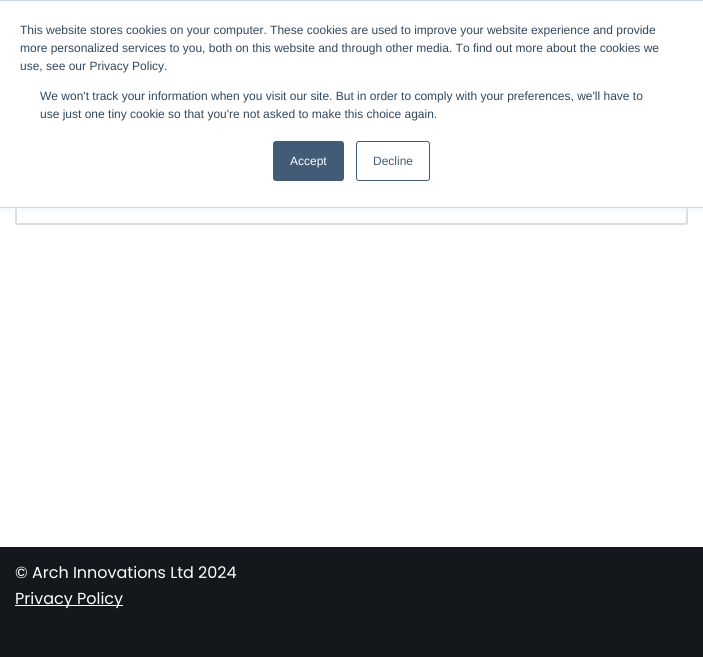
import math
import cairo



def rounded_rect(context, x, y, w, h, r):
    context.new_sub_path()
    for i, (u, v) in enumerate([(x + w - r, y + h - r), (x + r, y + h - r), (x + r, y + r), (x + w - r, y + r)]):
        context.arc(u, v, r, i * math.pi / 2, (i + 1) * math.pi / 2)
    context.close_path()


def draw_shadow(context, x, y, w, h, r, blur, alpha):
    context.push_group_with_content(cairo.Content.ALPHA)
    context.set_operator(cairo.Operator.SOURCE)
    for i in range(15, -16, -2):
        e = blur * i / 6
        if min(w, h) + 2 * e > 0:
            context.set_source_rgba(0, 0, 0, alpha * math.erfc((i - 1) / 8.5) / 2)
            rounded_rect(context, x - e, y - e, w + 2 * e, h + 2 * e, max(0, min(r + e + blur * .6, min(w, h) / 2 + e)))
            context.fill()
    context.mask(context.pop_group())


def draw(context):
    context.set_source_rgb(1, 1, 1)
    context.paint()
    context.set_source_rgb(221 / 255, 221 / 255, 221 / 255)
    context.set_fill_rule(cairo.FillRule.EVEN_ODD)
    context.new_path()
    context.move_to(18, 176)
    context.line_to(643, 176)
    context.line_to(643, 225)
    context.line_to(18, 225)
    context.curve_to(16, 225, 15, 224, 15, 222)
    context.line_to(15, 179)
    context.curve_to(15, 177, 16, 176, 18, 176)
    context.close_path()
    context.move_to(18, 178)
    context.line_to(643, 178)
    context.line_to(643, 223)
    context.line_to(18, 223)
    context.curve_to(17, 223, 17, 223, 17, 222)
    context.line_to(17, 179)
    context.curve_to(17, 178, 17, 178, 18, 178)
    context.close_path()
    context.fill()
    context.new_path()
    context.move_to(643, 176)
    context.line_to(685, 176)
    context.curve_to(687, 176, 688, 177, 688, 179)
    context.line_to(688, 222)
    context.curve_to(688, 224, 687, 225, 685, 225)
    context.line_to(643, 225)
    context.close_path()
    context.move_to(643, 178)
    context.line_to(685, 178)
    context.curve_to(686, 178, 686, 178, 686, 179)
    context.line_to(686, 222)
    context.curve_to(686, 223, 686, 223, 685, 223)
    context.line_to(643, 223)
    context.close_path()
    context.fill()
    context.set_source_rgb(234 / 255, 240 / 255, 246 / 255)
    draw_shadow(context, 0, 1, 703, 208, 0, 2.5, 1)
    context.set_source_rgb(1, 1, 1)
    context.rectangle(0, 1, 703, 206)
    context.fill()
    context.set_source_rgb(203 / 255, 214 / 255, 226 / 255)
    context.rectangle(0, 0, 703, 1)
    context.fill()
    context.rectangle(0, 207, 703, 1)
    context.fill()
    context.set_source_rgb(66 / 255, 91 / 255, 118 / 255)
    rounded_rect(context, 273.5, 141.5, 70, 39, 2.5)
    context.fill_preserve()
    context.set_line_width(1)
    context.stroke()
    rounded_rect(context, 356.5, 141.5, 73, 39, 2.5)
    context.stroke()
    context.set_source_rgb(20 / 255, 23 / 255, 28 / 255)
    context.rectangle(0, 547, 703, 110)
    context.fill()
    context.set_source_rgb(1, 254 / 255, 254 / 255)
    context.rectangle(15, 605, 108, 1)
    context.fill()
    context.select_font_face("Liberation Sans")
    context.set_font_size(12)
    context.set_source_rgb(51 / 255, 71 / 255, 91 / 255)
    context.move_to(20, 34)
    context.show_text("This website stores cookies on your computer. These cookies are used to improve your website experience and provide")
    context.move_to(20, 52)
    context.show_text("more personalized services to you, both on this website and through other media. To find out more about the cookies we")
    context.move_to(20, 70)
    context.show_text("use, see our Privacy Policy.")
    context.move_to(40, 100)
    context.show_text("We won't track your information when you visit our site. But in order to comply with your preferences, we'll have to")
    context.move_to(40, 118)
    context.show_text("use just one tiny cookie so that you're not asked to make this choice again.")
    context.set_source_rgb(1, 254 / 255, 254 / 255)
    context.move_to(290, 165)
    context.show_text("Accept")
    context.set_source_rgb(66 / 255, 91 / 255, 118 / 255)
    context.move_to(373, 165)
    context.show_text("Decline")
    context.select_font_face("Poppins")
    context.set_font_size(16)
    context.set_source_rgb(1, 254 / 255, 254 / 255)
    context.move_to(15, 578)
    context.show_text("© Arch Innovations Ltd 2024")
    context.move_to(15, 604)
    context.show_text("Privacy Policy")


surface = cairo.ImageSurface(cairo.Format.RGB24, 703, 657)
context = cairo.Context(surface)
options = cairo.FontOptions()
options.set_hint_metrics(cairo.HintMetrics.OFF)
options.set_hint_style(cairo.HintStyle.NONE)
context.set_font_options(options)
context.set_miter_limit(4)
draw(context)
surface.write_to_png("out.png")
